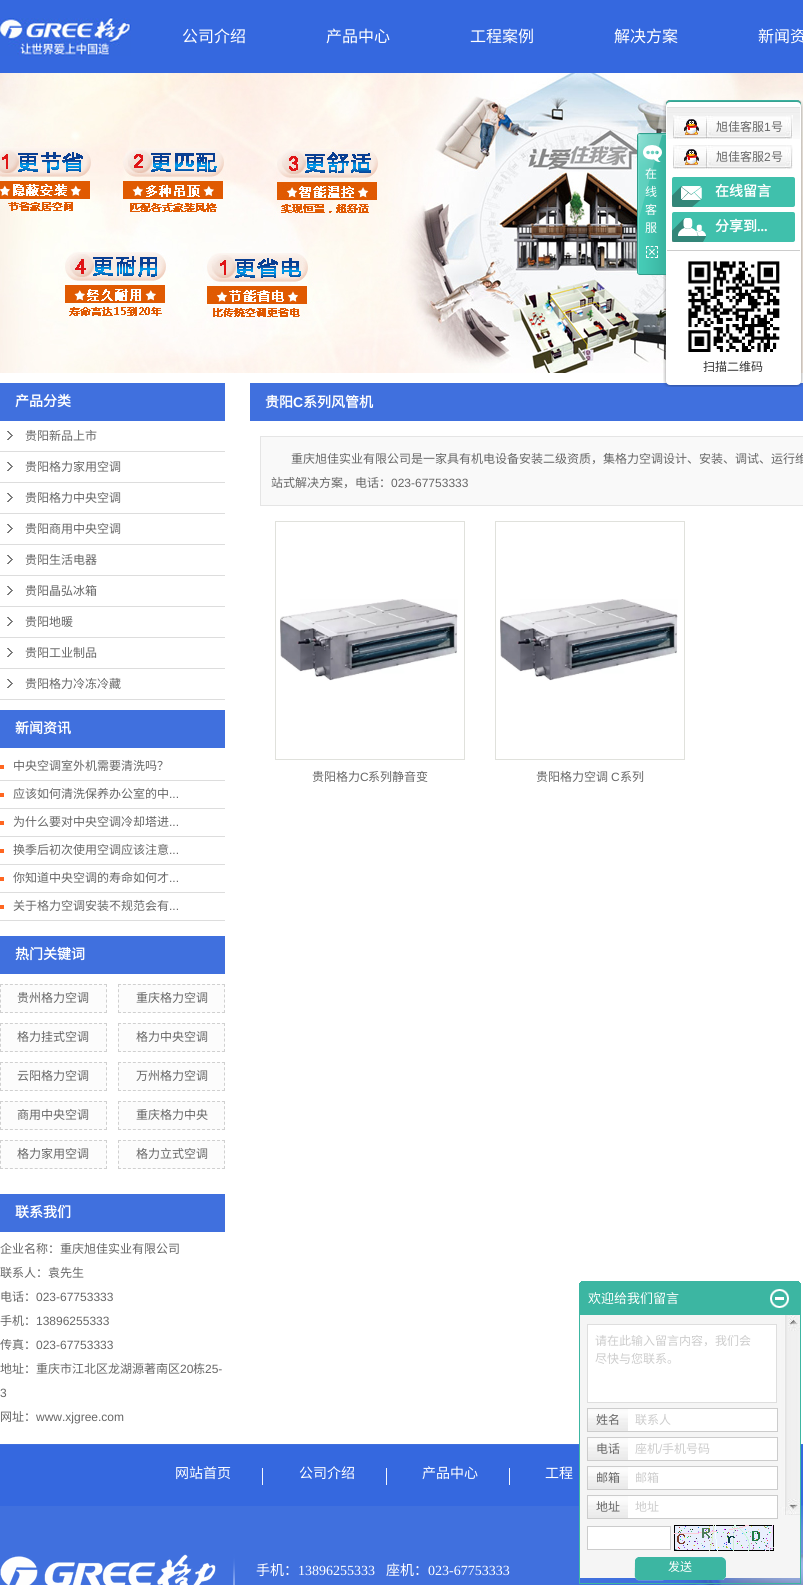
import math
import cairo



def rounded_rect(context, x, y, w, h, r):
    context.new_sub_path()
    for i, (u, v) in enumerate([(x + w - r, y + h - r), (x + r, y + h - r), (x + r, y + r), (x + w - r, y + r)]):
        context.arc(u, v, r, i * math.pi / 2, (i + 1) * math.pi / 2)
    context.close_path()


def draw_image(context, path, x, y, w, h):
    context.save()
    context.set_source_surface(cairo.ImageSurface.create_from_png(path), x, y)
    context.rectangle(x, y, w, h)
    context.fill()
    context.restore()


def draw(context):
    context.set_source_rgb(1, 1, 1)
    context.paint()
    context.set_source_rgb(53 / 255, 104 / 255, 223 / 255)
    context.rectangle(0, 0, 803, 73)
    context.fill()
    draw_image(context, "images/1.png", 0, 17, 131, 39)
    draw_image(context, "images/2.png", 0, 73, 803, 300)
    draw_image(context, "images/6.png", 663, 107, 140, 272)
    draw_image(context, "images/3.png", 637, 133, 29, 142)
    draw_image(context, "images/4.png", 646, 246, 12, 12)
    draw_image(context, "images/5.png", 663, 100, 140, 7)
    draw_image(context, "images/7.png", 667, 107, 133, 32)
    draw_image(context, "images/8.png", 673, 115, 120, 24)
    draw_image(context, "images/9.png", 684, 119, 15, 16)
    draw_image(context, "images/8.png", 673, 145, 120, 24)
    draw_image(context, "images/9.png", 684, 149, 15, 16)
    context.set_source_rgb(64 / 255, 192 / 255, 172 / 255)
    rounded_rect(context, 672, 177, 123, 30, 2)
    context.fill()
    draw_image(context, "images/10.png", 672, 186, 30, 21)
    rounded_rect(context, 672, 212, 123, 30, 2)
    context.fill()
    draw_image(context, "images/11.png", 672, 218, 34, 24)
    context.set_source_rgb(204 / 255, 204 / 255, 204 / 255)
    context.rectangle(667, 250, 133, 1)
    context.fill()
    draw_image(context, "images/12.png", 688, 261, 92, 91)
    context.set_source_rgb(64 / 255, 112 / 255, 222 / 255)
    context.rectangle(250, 383, 553, 38)
    context.fill()
    draw_image(context, "images/13.png", 663, 379, 140, 8)
    context.rectangle(0, 383, 225, 38)
    context.fill()
    draw_image(context, "images/14.png", 7, 431, 6, 9)
    context.set_source_rgb(221 / 255, 221 / 255, 221 / 255)
    context.rectangle(0, 451, 225, 1)
    context.fill()
    draw_image(context, "images/14.png", 7, 462, 6, 9)
    context.rectangle(0, 482, 225, 1)
    context.fill()
    draw_image(context, "images/14.png", 7, 493, 6, 9)
    context.rectangle(0, 513, 225, 1)
    context.fill()
    draw_image(context, "images/14.png", 7, 524, 6, 9)
    context.rectangle(0, 544, 225, 1)
    context.fill()
    draw_image(context, "images/14.png", 7, 555, 6, 9)
    context.rectangle(0, 575, 225, 1)
    context.fill()
    draw_image(context, "images/14.png", 7, 586, 6, 9)
    context.rectangle(0, 606, 225, 1)
    context.fill()
    draw_image(context, "images/14.png", 7, 617, 6, 9)
    context.rectangle(0, 637, 225, 1)
    context.fill()
    draw_image(context, "images/14.png", 7, 648, 6, 9)
    context.rectangle(0, 668, 225, 1)
    context.fill()
    draw_image(context, "images/14.png", 7, 679, 6, 9)
    context.rectangle(0, 699, 225, 1)
    context.fill()
    context.set_source_rgb(64 / 255, 112 / 255, 222 / 255)
    context.rectangle(0, 710, 225, 38)
    context.fill()
    context.set_source_rgb(1, 102 / 255, 33 / 255)
    context.rectangle(0, 765, 4, 4)
    context.fill()
    context.set_source_rgb(221 / 255, 221 / 255, 221 / 255)
    context.rectangle(0, 780, 225, 1)
    context.fill()
    context.set_source_rgb(1, 102 / 255, 33 / 255)
    context.rectangle(0, 793, 4, 4)
    context.fill()
    context.set_source_rgb(221 / 255, 221 / 255, 221 / 255)
    context.rectangle(0, 808, 225, 1)
    context.fill()
    context.set_source_rgb(1, 102 / 255, 33 / 255)
    context.rectangle(0, 821, 4, 4)
    context.fill()
    context.set_source_rgb(221 / 255, 221 / 255, 221 / 255)
    context.rectangle(0, 836, 225, 1)
    context.fill()
    context.set_source_rgb(1, 102 / 255, 33 / 255)
    context.rectangle(0, 849, 4, 4)
    context.fill()
    context.set_source_rgb(221 / 255, 221 / 255, 221 / 255)
    context.rectangle(0, 864, 225, 1)
    context.fill()
    context.set_source_rgb(1, 102 / 255, 33 / 255)
    context.rectangle(0, 877, 4, 4)
    context.fill()
    context.set_source_rgb(221 / 255, 221 / 255, 221 / 255)
    context.rectangle(0, 892, 225, 1)
    context.fill()
    context.set_source_rgb(1, 102 / 255, 33 / 255)
    context.rectangle(0, 905, 4, 4)
    context.fill()
    context.set_source_rgb(221 / 255, 221 / 255, 221 / 255)
    context.rectangle(0, 920, 225, 1)
    context.fill()
    context.set_source_rgb(64 / 255, 112 / 255, 222 / 255)
    context.rectangle(0, 936, 225, 38)
    context.fill()
    context.set_source_rgb(252 / 255, 252 / 255, 252 / 255)
    context.rectangle(0, 984, 107, 29)
    context.fill()
    context.new_path()
    context.move_to(0, 984.5)
    context.line_to(107, 984.5)
    context.set_source_rgb(208 / 255, 208 / 255, 208 / 255)
    context.set_line_width(1)
    context.set_dash([3, 1.95])
    context.stroke()
    context.new_path()
    context.move_to(106.5, 984)
    context.line_to(106.5, 1013)
    context.set_dash([3, 2.2])
    context.stroke()
    context.new_path()
    context.move_to(0, 1012.5)
    context.line_to(107, 1012.5)
    context.set_dash([3, 1.95])
    context.stroke()
    context.new_path()
    context.move_to(0.5, 984)
    context.line_to(0.5, 1013)
    context.set_dash([3, 2.2])
    context.stroke()
    context.set_source_rgb(252 / 255, 252 / 255, 252 / 255)
    context.rectangle(118, 984, 107, 29)
    context.fill()
    context.new_path()
    context.move_to(118, 984.5)
    context.line_to(225, 984.5)
    context.set_source_rgb(208 / 255, 208 / 255, 208 / 255)
    context.set_dash([3, 1.95])
    context.stroke()
    context.new_path()
    context.move_to(224.5, 984)
    context.line_to(224.5, 1013)
    context.set_dash([3, 2.2])
    context.stroke()
    context.new_path()
    context.move_to(118, 1012.5)
    context.line_to(225, 1012.5)
    context.set_dash([3, 1.95])
    context.stroke()
    context.new_path()
    context.move_to(118.5, 984)
    context.line_to(118.5, 1013)
    context.set_dash([3, 2.2])
    context.stroke()
    context.set_source_rgb(252 / 255, 252 / 255, 252 / 255)
    context.rectangle(0, 1023, 107, 29)
    context.fill()
    context.new_path()
    context.move_to(0, 1023.5)
    context.line_to(107, 1023.5)
    context.set_source_rgb(208 / 255, 208 / 255, 208 / 255)
    context.set_dash([3, 1.95])
    context.stroke()
    context.new_path()
    context.move_to(106.5, 1023)
    context.line_to(106.5, 1052)
    context.set_dash([3, 2.2])
    context.stroke()
    context.new_path()
    context.move_to(0, 1051.5)
    context.line_to(107, 1051.5)
    context.set_dash([3, 1.95])
    context.stroke()
    context.new_path()
    context.move_to(0.5, 1023)
    context.line_to(0.5, 1052)
    context.set_dash([3, 2.2])
    context.stroke()
    context.set_source_rgb(252 / 255, 252 / 255, 252 / 255)
    context.rectangle(118, 1023, 107, 29)
    context.fill()
    context.new_path()
    context.move_to(118, 1023.5)
    context.line_to(225, 1023.5)
    context.set_source_rgb(208 / 255, 208 / 255, 208 / 255)
    context.set_dash([3, 1.95])
    context.stroke()
    context.new_path()
    context.move_to(224.5, 1023)
    context.line_to(224.5, 1052)
    context.set_dash([3, 2.2])
    context.stroke()
    context.new_path()
    context.move_to(118, 1051.5)
    context.line_to(225, 1051.5)
    context.set_dash([3, 1.95])
    context.stroke()
    context.new_path()
    context.move_to(118.5, 1023)
    context.line_to(118.5, 1052)
    context.set_dash([3, 2.2])
    context.stroke()
    context.set_source_rgb(252 / 255, 252 / 255, 252 / 255)
    context.rectangle(0, 1062, 107, 29)
    context.fill()
    context.new_path()
    context.move_to(0, 1062.5)
    context.line_to(107, 1062.5)
    context.set_source_rgb(208 / 255, 208 / 255, 208 / 255)
    context.set_dash([3, 1.95])
    context.stroke()
    context.new_path()
    context.move_to(106.5, 1062)
    context.line_to(106.5, 1091)
    context.set_dash([3, 2.2])
    context.stroke()
    context.new_path()
    context.move_to(0, 1090.5)
    context.line_to(107, 1090.5)
    context.set_dash([3, 1.95])
    context.stroke()
    context.new_path()
    context.move_to(0.5, 1062)
    context.line_to(0.5, 1091)
    context.set_dash([3, 2.2])
    context.stroke()
    context.set_source_rgb(252 / 255, 252 / 255, 252 / 255)
    context.rectangle(118, 1062, 107, 29)
    context.fill()
    context.new_path()
    context.move_to(118, 1062.5)
    context.line_to(225, 1062.5)
    context.set_source_rgb(208 / 255, 208 / 255, 208 / 255)
    context.set_dash([3, 1.95])
    context.stroke()
    context.new_path()
    context.move_to(224.5, 1062)
    context.line_to(224.5, 1091)
    context.set_dash([3, 2.2])
    context.stroke()
    context.new_path()
    context.move_to(118, 1090.5)
    context.line_to(225, 1090.5)
    context.set_dash([3, 1.95])
    context.stroke()
    context.new_path()
    context.move_to(118.5, 1062)
    context.line_to(118.5, 1091)
    context.set_dash([3, 2.2])
    context.stroke()
    context.set_source_rgb(252 / 255, 252 / 255, 252 / 255)
    context.rectangle(0, 1101, 107, 29)
    context.fill()
    context.new_path()
    context.move_to(0, 1101.5)
    context.line_to(107, 1101.5)
    context.set_source_rgb(208 / 255, 208 / 255, 208 / 255)
    context.set_dash([3, 1.95])
    context.stroke()
    context.new_path()
    context.move_to(106.5, 1101)
    context.line_to(106.5, 1130)
    context.set_dash([3, 2.2])
    context.stroke()
    context.new_path()
    context.move_to(0, 1129.5)
    context.line_to(107, 1129.5)
    context.set_dash([3, 1.95])
    context.stroke()
    context.new_path()
    context.move_to(0.5, 1101)
    context.line_to(0.5, 1130)
    context.set_dash([3, 2.2])
    context.stroke()
    context.set_source_rgb(252 / 255, 252 / 255, 252 / 255)
    context.rectangle(118, 1101, 107, 29)
    context.fill()
    context.new_path()
    context.move_to(118, 1101.5)
    context.line_to(225, 1101.5)
    context.set_source_rgb(208 / 255, 208 / 255, 208 / 255)
    context.set_dash([3, 1.95])
    context.stroke()
    context.new_path()
    context.move_to(224.5, 1101)
    context.line_to(224.5, 1130)
    context.set_dash([3, 2.2])
    context.stroke()
    context.new_path()
    context.move_to(118, 1129.5)
    context.line_to(225, 1129.5)
    context.set_dash([3, 1.95])
    context.stroke()
    context.new_path()
    context.move_to(118.5, 1101)
    context.line_to(118.5, 1130)
    context.set_dash([3, 2.2])
    context.stroke()
    context.set_source_rgb(252 / 255, 252 / 255, 252 / 255)
    context.rectangle(0, 1140, 107, 29)
    context.fill()
    context.new_path()
    context.move_to(0, 1140.5)
    context.line_to(107, 1140.5)
    context.set_source_rgb(208 / 255, 208 / 255, 208 / 255)
    context.set_dash([3, 1.95])
    context.stroke()
    context.new_path()
    context.move_to(106.5, 1140)
    context.line_to(106.5, 1169)
    context.set_dash([3, 2.2])
    context.stroke()
    context.new_path()
    context.move_to(0, 1168.5)
    context.line_to(107, 1168.5)
    context.set_dash([3, 1.95])
    context.stroke()
    context.new_path()
    context.move_to(0.5, 1140)
    context.line_to(0.5, 1169)
    context.set_dash([3, 2.2])
    context.stroke()
    context.set_source_rgb(252 / 255, 252 / 255, 252 / 255)
    context.rectangle(118, 1140, 107, 29)
    context.fill()
    context.new_path()
    context.move_to(118, 1140.5)
    context.line_to(225, 1140.5)
    context.set_source_rgb(208 / 255, 208 / 255, 208 / 255)
    context.set_dash([3, 1.95])
    context.stroke()
    context.new_path()
    context.move_to(224.5, 1140)
    context.line_to(224.5, 1169)
    context.set_dash([3, 2.2])
    context.stroke()
    context.new_path()
    context.move_to(118, 1168.5)
    context.line_to(225, 1168.5)
    context.set_dash([3, 1.95])
    context.stroke()
    context.new_path()
    context.move_to(118.5, 1140)
    context.line_to(118.5, 1169)
    context.set_dash([3, 2.2])
    context.stroke()
    context.set_source_rgb(64 / 255, 112 / 255, 222 / 255)
    context.rectangle(0, 1194, 225, 38)
    context.fill()
    context.set_source_rgb(249 / 255, 249 / 255, 249 / 255)
    context.rectangle(260.5, 436.5, 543, 69)
    context.fill_preserve()
    context.set_source_rgb(229 / 255, 229 / 255, 229 / 255)
    context.set_dash([])
    context.stroke()
    context.rectangle(275.5, 521.5, 189, 238)
    context.set_source_rgb(224 / 255, 225 / 255, 220 / 255)
    context.stroke()
    draw_image(context, "images/15.png", 280, 599, 178, 82)
    context.rectangle(495.5, 521.5, 189, 238)
    context.stroke()
    draw_image(context, "images/15.png", 500, 599, 178, 82)
    draw_image(context, "images/16.png", 0, 1444, 803, 141)
    context.set_source_rgb(243 / 255, 246 / 255, 253 / 255)
    context.rectangle(262, 1468, 1, 17)
    context.fill()
    context.rectangle(386, 1468, 1, 17)
    context.fill()
    context.rectangle(509, 1468, 1, 17)
    context.fill()
    draw_image(context, "images/17.png", 0, 1554, 235, 31)
    context.set_source_rgb(60 / 255, 182 / 255, 162 / 255)
    context.rectangle(581, 1281, 218, 1)
    context.fill()
    context.rectangle(580, 1282, 220, 1)
    context.fill()
    context.rectangle(579, 1283, 222, 31)
    context.fill()
    draw_image(context, "images/18.png", 770, 1289, 19, 19)
    draw_image(context, "images/19.png", 580, 1315, 220, 263)
    context.rectangle(579.5, 1314.5, 221, 269)
    context.stroke()
    context.set_source_rgb(1, 1, 1)
    context.rectangle(587.5, 1324.5, 189, 78)
    context.fill_preserve()
    context.set_source_rgb(222 / 255, 222 / 255, 222 / 255)
    context.stroke()
    context.set_source_rgb(1, 1, 1)
    context.rectangle(628, 1409, 149, 22)
    context.fill()
    context.rectangle(587.5, 1408.5, 190, 23)
    context.set_source_rgb(204 / 255, 204 / 255, 204 / 255)
    context.stroke()
    draw_image(context, "images/20.png", 588, 1409, 40, 22)
    context.set_source_rgb(1, 1, 1)
    context.rectangle(628, 1438, 149, 22)
    context.fill()
    context.rectangle(587.5, 1437.5, 190, 23)
    context.set_source_rgb(204 / 255, 204 / 255, 204 / 255)
    context.stroke()
    draw_image(context, "images/20.png", 588, 1438, 40, 22)
    context.set_source_rgb(1, 1, 1)
    context.rectangle(628, 1467, 149, 22)
    context.fill()
    context.rectangle(587.5, 1466.5, 190, 23)
    context.set_source_rgb(204 / 255, 204 / 255, 204 / 255)
    context.stroke()
    draw_image(context, "images/20.png", 588, 1467, 40, 22)
    context.set_source_rgb(1, 1, 1)
    context.rectangle(628, 1496, 149, 22)
    context.fill()
    context.rectangle(587.5, 1495.5, 190, 23)
    context.set_source_rgb(204 / 255, 204 / 255, 204 / 255)
    context.stroke()
    draw_image(context, "images/20.png", 588, 1496, 40, 22)
    context.set_source_rgb(1, 1, 1)
    context.rectangle(587.5, 1526.5, 83, 23)
    context.fill_preserve()
    context.set_source_rgb(204 / 255, 204 / 255, 204 / 255)
    context.stroke()
    draw_image(context, "images/21.png", 674, 1525, 100, 26)
    draw_image(context, "images/22.png", 634, 1557, 92, 24)
    context.select_font_face("Noto Sans CJK SC")
    context.set_font_size(16)
    context.set_source_rgb(1, 1, 1)
    context.move_to(182, 42)
    context.show_text("公司介绍")
    context.move_to(326, 42)
    context.show_text("产品中心")
    context.move_to(470, 42)
    context.show_text("工程案例")
    context.move_to(614, 42)
    context.show_text("解决方案")
    context.move_to(758, 42)
    context.show_text("新闻资")
    context.set_font_size(12)
    context.move_to(645, 178)
    context.show_text("在")
    context.move_to(645, 196)
    context.show_text("线")
    context.move_to(645, 214)
    context.show_text("客")
    context.move_to(645, 232)
    context.show_text("服")
    context.set_source_rgb(102 / 255, 102 / 255, 102 / 255)
    context.move_to(716, 131)
    context.show_text("旭佳客服")
    context.select_font_face("Liberation Sans")
    context.move_to(764, 131)
    context.show_text("1")
    context.select_font_face("Noto Sans CJK SC")
    context.move_to(771, 131)
    context.show_text("号")
    context.move_to(716, 161)
    context.show_text("旭佳客服")
    context.select_font_face("Liberation Sans")
    context.move_to(764, 161)
    context.show_text("2")
    context.select_font_face("Noto Sans CJK SC")
    context.move_to(771, 161)
    context.show_text("号")
    context.select_font_face("Noto Sans CJK SC", cairo.FontSlant.NORMAL, cairo.FontWeight.BOLD)
    context.set_font_size(14)
    context.set_source_rgb(1, 1, 1)
    context.move_to(715, 196)
    context.show_text("在线留言")
    context.move_to(715, 231)
    context.show_text("分享到")
    context.select_font_face("Liberation Serif", cairo.FontSlant.NORMAL, cairo.FontWeight.BOLD)
    context.move_to(757, 231)
    context.show_text("...")
    context.select_font_face("Noto Sans CJK SC")
    context.set_font_size(12)
    context.set_source_rgb(51 / 255, 51 / 255, 51 / 255)
    context.move_to(703, 371)
    context.show_text("扫描二维码")
    context.select_font_face("Noto Sans CJK SC", cairo.FontSlant.NORMAL, cairo.FontWeight.BOLD)
    context.set_font_size(14)
    context.set_source_rgb(1, 1, 1)
    context.move_to(15, 406)
    context.show_text("产品分类")
    context.select_font_face("Noto Sans CJK SC")
    context.set_font_size(12)
    context.set_source_rgb(102 / 255, 102 / 255, 102 / 255)
    context.move_to(25, 440)
    context.show_text("贵阳新品上市")
    context.move_to(25, 471)
    context.show_text("贵阳格力家用空调")
    context.move_to(25, 502)
    context.show_text("贵阳格力中央空调")
    context.move_to(25, 533)
    context.show_text("贵阳商用中央空调")
    context.move_to(25, 564)
    context.show_text("贵阳生活电器")
    context.move_to(25, 595)
    context.show_text("贵阳晶弘冰箱")
    context.move_to(25, 626)
    context.show_text("贵阳地暖")
    context.move_to(25, 657)
    context.show_text("贵阳工业制品")
    context.move_to(25, 688)
    context.show_text("贵阳格力冷冻冷藏")
    context.select_font_face("Noto Sans CJK SC", cairo.FontSlant.NORMAL, cairo.FontWeight.BOLD)
    context.set_font_size(14)
    context.set_source_rgb(1, 1, 1)
    context.move_to(15, 733)
    context.show_text("新闻资讯")
    context.select_font_face("Noto Sans CJK SC")
    context.set_font_size(12)
    context.set_source_rgb(102 / 255, 102 / 255, 102 / 255)
    context.move_to(13, 770)
    context.show_text("中央空调室外机需要清洗吗？")
    context.move_to(13, 798)
    context.show_text("应该如何清洗保养办公室的中")
    context.select_font_face("Liberation Sans")
    context.move_to(169, 798)
    context.show_text("...")
    context.select_font_face("Noto Sans CJK SC")
    context.move_to(13, 826)
    context.show_text("为什么要对中央空调冷却塔进")
    context.select_font_face("Liberation Sans")
    context.move_to(169, 826)
    context.show_text("...")
    context.select_font_face("Noto Sans CJK SC")
    context.move_to(13, 854)
    context.show_text("换季后初次使用空调应该注意")
    context.select_font_face("Liberation Sans")
    context.move_to(169, 854)
    context.show_text("...")
    context.select_font_face("Noto Sans CJK SC")
    context.move_to(13, 882)
    context.show_text("你知道中央空调的寿命如何才")
    context.select_font_face("Liberation Sans")
    context.move_to(169, 882)
    context.show_text("...")
    context.select_font_face("Noto Sans CJK SC")
    context.move_to(13, 910)
    context.show_text("关于格力空调安装不规范会有")
    context.select_font_face("Liberation Sans")
    context.move_to(169, 910)
    context.show_text("...")
    context.select_font_face("Noto Sans CJK SC", cairo.FontSlant.NORMAL, cairo.FontWeight.BOLD)
    context.set_font_size(14)
    context.set_source_rgb(1, 1, 1)
    context.move_to(15, 959)
    context.show_text("热门关键词")
    context.select_font_face("Noto Sans CJK SC")
    context.set_font_size(12)
    context.set_source_rgb(102 / 255, 102 / 255, 102 / 255)
    context.move_to(17, 1002)
    context.show_text("贵州格力空调")
    context.move_to(136, 1002)
    context.show_text("重庆格力空调")
    context.move_to(17, 1041)
    context.show_text("格力挂式空调")
    context.move_to(136, 1041)
    context.show_text("格力中央空调")
    context.move_to(17, 1080)
    context.show_text("云阳格力空调")
    context.move_to(136, 1080)
    context.show_text("万州格力空调")
    context.move_to(17, 1119)
    context.show_text("商用中央空调")
    context.move_to(136, 1119)
    context.show_text("重庆格力中央")
    context.move_to(17, 1158)
    context.show_text("格力家用空调")
    context.move_to(136, 1158)
    context.show_text("格力立式空调")
    context.select_font_face("Noto Sans CJK SC", cairo.FontSlant.NORMAL, cairo.FontWeight.BOLD)
    context.set_font_size(14)
    context.set_source_rgb(1, 1, 1)
    context.move_to(15, 1217)
    context.show_text("联系我们")
    context.select_font_face("Noto Sans CJK SC")
    context.set_font_size(12)
    context.set_source_rgb(102 / 255, 102 / 255, 102 / 255)
    context.move_to(0, 1253)
    context.show_text("企业名称：重庆旭佳实业有限公司")
    context.move_to(0, 1277)
    context.show_text("联系人：袁先生")
    context.move_to(0, 1301)
    context.show_text("电话：")
    context.select_font_face("Liberation Sans")
    context.move_to(36, 1301)
    context.show_text("023-67753333")
    context.select_font_face("Noto Sans CJK SC")
    context.move_to(0, 1325)
    context.show_text("手机：")
    context.select_font_face("Liberation Sans")
    context.move_to(36, 1325)
    context.show_text("13896255333")
    context.select_font_face("Noto Sans CJK SC")
    context.move_to(0, 1349)
    context.show_text("传真：")
    context.select_font_face("Liberation Sans")
    context.move_to(36, 1349)
    context.show_text("023-67753333")
    context.select_font_face("Noto Sans CJK SC")
    context.move_to(0, 1373)
    context.show_text("地址：重庆市江北区龙湖源著南区")
    context.select_font_face("Liberation Sans")
    context.move_to(180, 1373)
    context.show_text("20")
    context.select_font_face("Noto Sans CJK SC")
    context.move_to(193, 1373)
    context.show_text("栋")
    context.select_font_face("Liberation Sans")
    context.move_to(205, 1373)
    context.show_text("25-")
    context.move_to(0, 1397)
    context.show_text("3")
    context.select_font_face("Noto Sans CJK SC")
    context.move_to(0, 1421)
    context.show_text("网址：")
    context.select_font_face("Liberation Sans")
    context.move_to(36, 1421)
    context.show_text("www.xjgree.com")
    context.select_font_face("Noto Sans CJK SC", cairo.FontSlant.NORMAL, cairo.FontWeight.BOLD)
    context.set_font_size(14)
    context.set_source_rgb(1, 1, 1)
    context.move_to(265, 407)
    context.show_text("贵阳")
    context.select_font_face("Liberation Sans", cairo.FontSlant.NORMAL, cairo.FontWeight.BOLD)
    context.move_to(293, 407)
    context.show_text("C")
    context.select_font_face("Noto Sans CJK SC", cairo.FontSlant.NORMAL, cairo.FontWeight.BOLD)
    context.move_to(303, 407)
    context.show_text("系列风管机")
    context.select_font_face("Noto Sans CJK SC")
    context.set_font_size(12)
    context.set_source_rgb(102 / 255, 102 / 255, 102 / 255)
    context.move_to(291, 463)
    context.show_text("重庆旭佳实业有限公司是一家具有机电设备安装二级资质，集格力空调设计、安装、调试、运行维")
    context.move_to(271, 487)
    context.show_text("站式解决方案，电话：")
    context.select_font_face("Liberation Sans")
    context.move_to(391, 487)
    context.show_text("023-67753333")
    context.select_font_face("Noto Sans CJK SC")
    context.move_to(312, 781)
    context.show_text("贵阳格力")
    context.select_font_face("Liberation Sans")
    context.move_to(360, 781)
    context.show_text("C")
    context.select_font_face("Noto Sans CJK SC")
    context.move_to(368, 781)
    context.show_text("系列静音变")
    context.move_to(536, 781)
    context.show_text("贵阳格力空调")
    context.select_font_face("Liberation Sans")
    context.move_to(611, 781)
    context.show_text("C")
    context.select_font_face("Noto Sans CJK SC")
    context.move_to(620, 781)
    context.show_text("系列")
    context.set_font_size(14)
    context.set_source_rgb(1, 1, 1)
    context.move_to(175, 1478)
    context.show_text("网站首页")
    context.move_to(299, 1478)
    context.show_text("公司介绍")
    context.move_to(422, 1478)
    context.show_text("产品中心")
    context.move_to(545, 1478)
    context.show_text("工程")
    context.move_to(256, 1575)
    context.show_text("手机：")
    context.select_font_face("Liberation Serif")
    context.move_to(298, 1575)
    context.show_text("13896255333")
    context.select_font_face("Noto Sans CJK SC")
    context.move_to(386, 1575)
    context.show_text("座机：")
    context.select_font_face("Liberation Serif")
    context.move_to(428, 1575)
    context.show_text("023-67753333")
    context.select_font_face("Noto Sans CJK SC")
    context.set_font_size(13)
    context.move_to(588, 1303)
    context.show_text("欢迎给我们留言")
    context.set_font_size(12)
    context.set_source_rgb(204 / 255, 204 / 255, 204 / 255)
    context.move_to(595, 1345)
    context.show_text("请在此输入留言内容，我们会")
    context.move_to(595, 1363)
    context.show_text("尽快与您联系。")
    context.set_source_rgb(102 / 255, 102 / 255, 102 / 255)
    context.move_to(596, 1424)
    context.show_text("姓名")
    context.set_source_rgb(204 / 255, 204 / 255, 204 / 255)
    context.move_to(635, 1424)
    context.show_text("联系人")
    context.set_source_rgb(102 / 255, 102 / 255, 102 / 255)
    context.move_to(596, 1453)
    context.show_text("电话")
    context.set_source_rgb(204 / 255, 204 / 255, 204 / 255)
    context.move_to(635, 1453)
    context.show_text("座机")
    context.select_font_face("Liberation Sans")
    context.move_to(659, 1453)
    context.show_text("/")
    context.select_font_face("Noto Sans CJK SC")
    context.move_to(662, 1453)
    context.show_text("手机号码")
    context.set_source_rgb(102 / 255, 102 / 255, 102 / 255)
    context.move_to(596, 1482)
    context.show_text("邮箱")
    context.set_source_rgb(204 / 255, 204 / 255, 204 / 255)
    context.move_to(635, 1482)
    context.show_text("邮箱")
    context.set_source_rgb(102 / 255, 102 / 255, 102 / 255)
    context.move_to(596, 1511)
    context.show_text("地址")
    context.set_source_rgb(204 / 255, 204 / 255, 204 / 255)
    context.move_to(635, 1511)
    context.show_text("地址")
    context.set_source_rgb(1, 1, 1)
    context.move_to(668, 1571)
    context.show_text("发送")


surface = cairo.ImageSurface(cairo.Format.RGB24, 803, 1585)
context = cairo.Context(surface)
options = cairo.FontOptions()
options.set_hint_metrics(cairo.HintMetrics.OFF)
options.set_hint_style(cairo.HintStyle.NONE)
context.set_font_options(options)
context.set_miter_limit(4)
draw(context)
surface.write_to_png("out.png")
